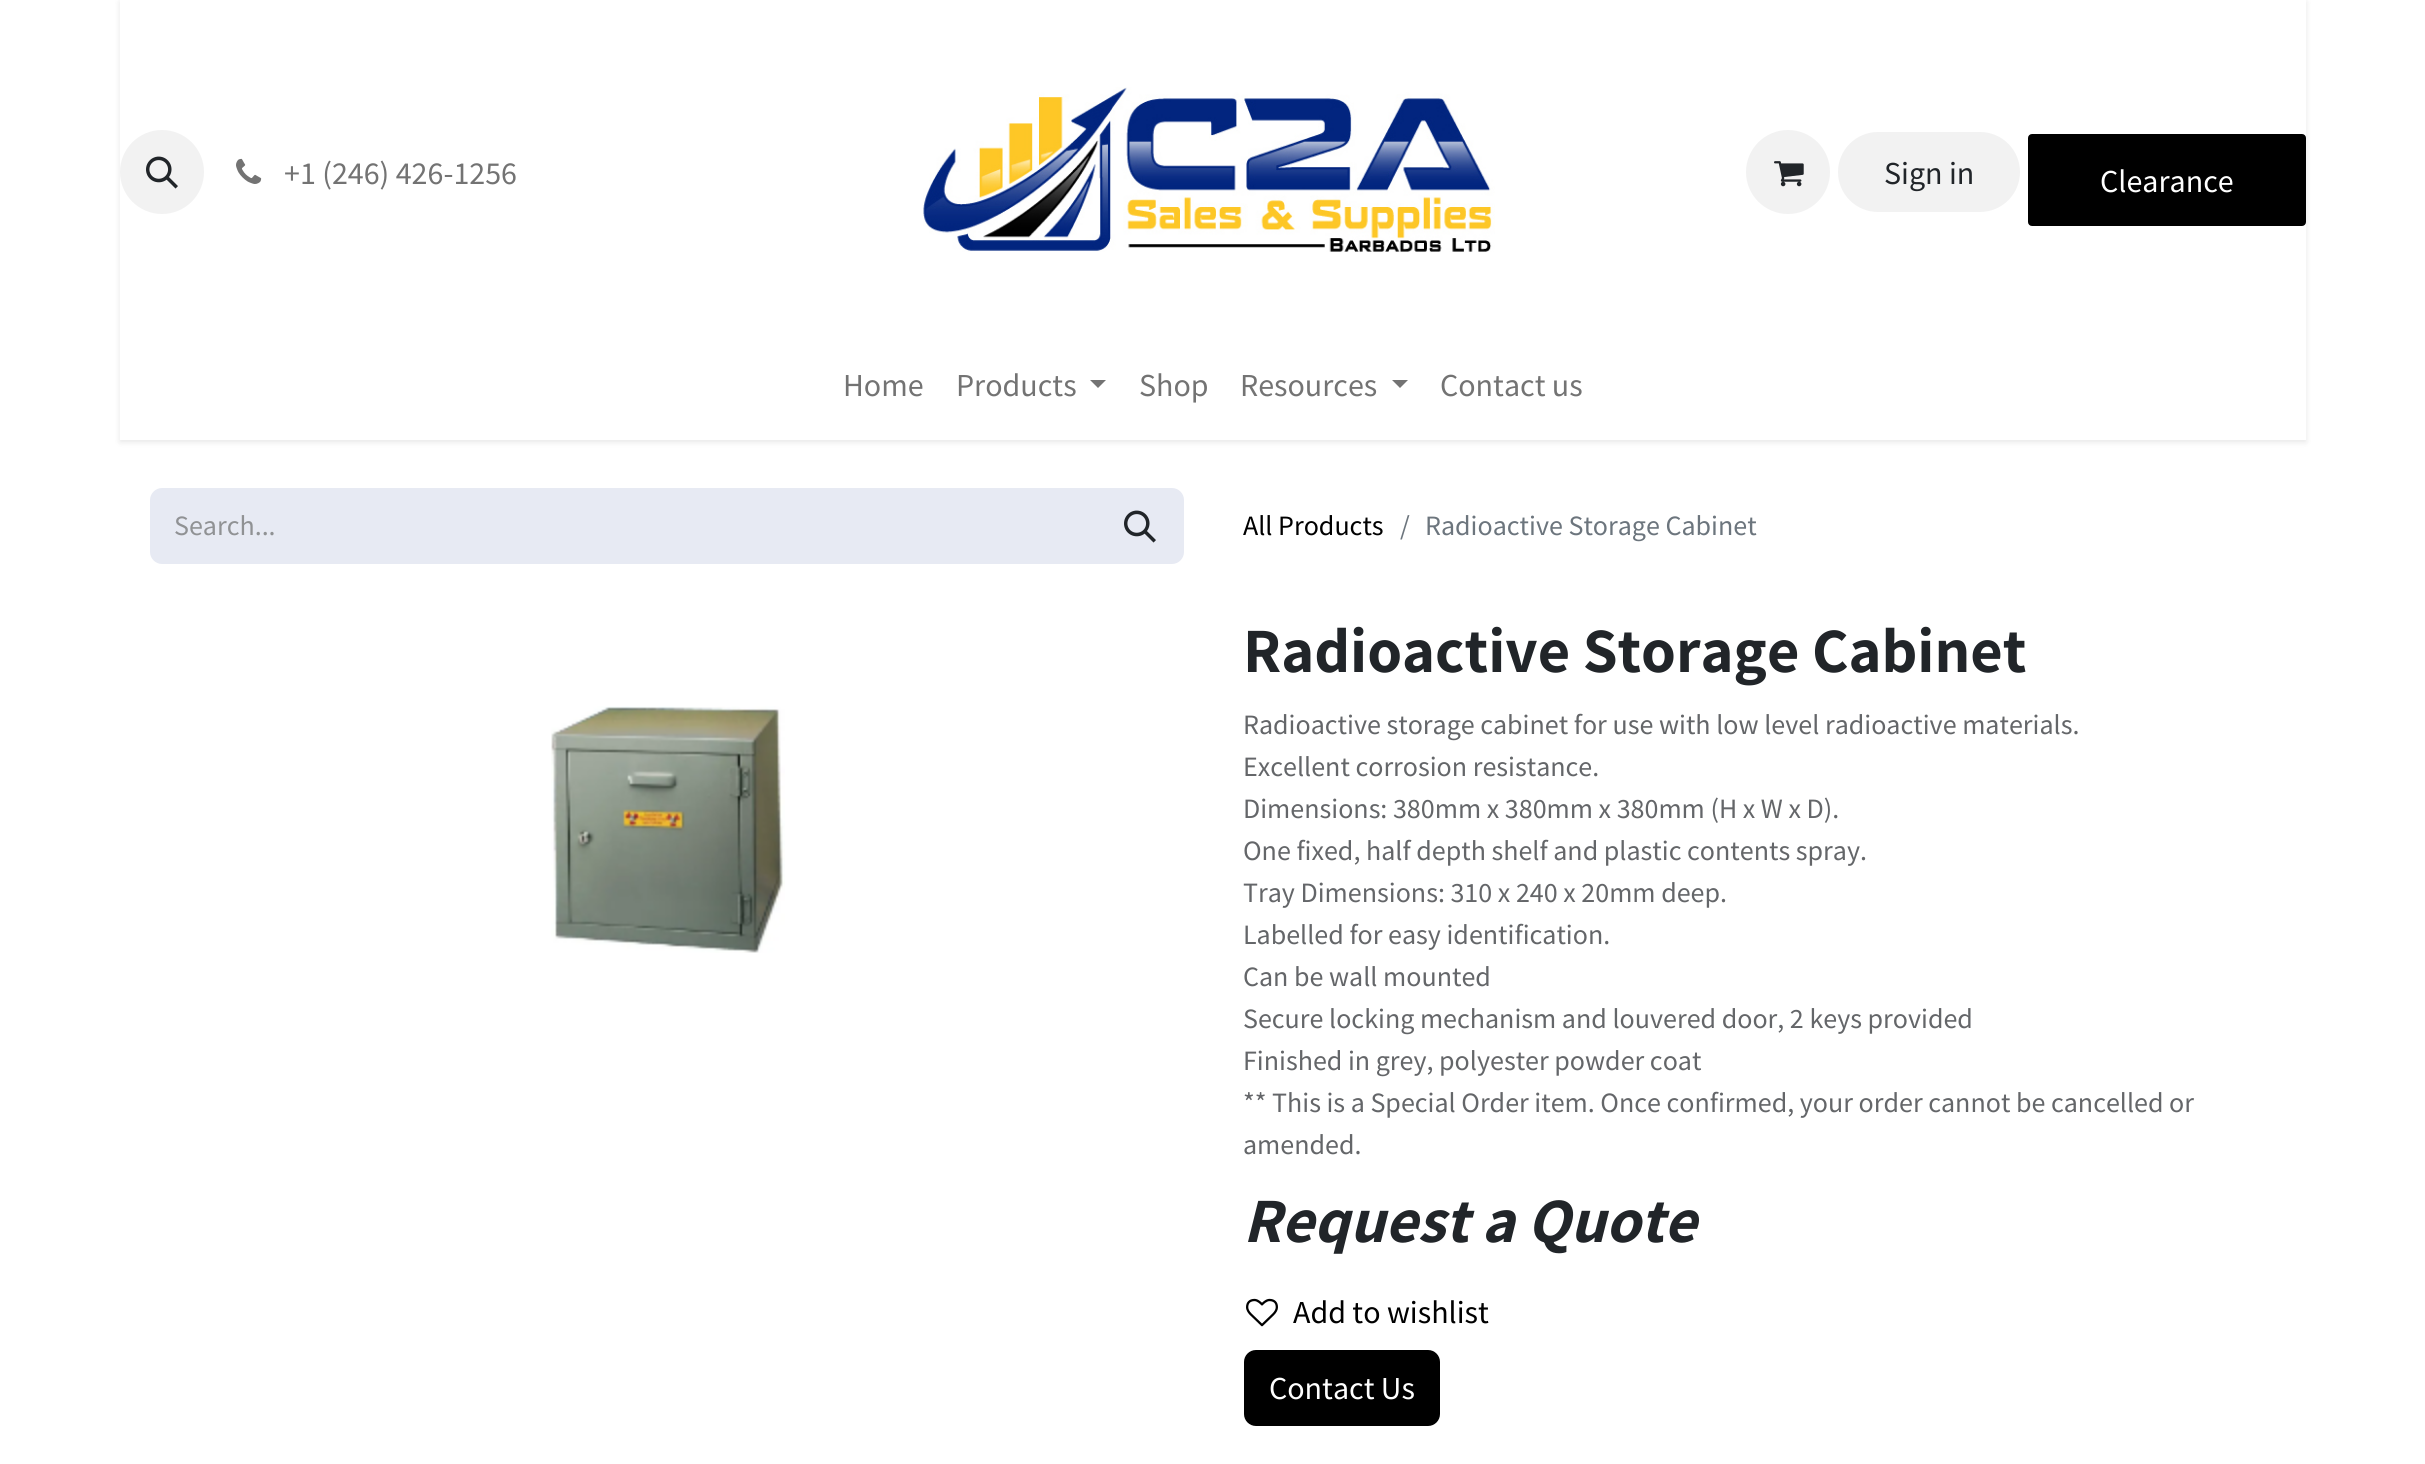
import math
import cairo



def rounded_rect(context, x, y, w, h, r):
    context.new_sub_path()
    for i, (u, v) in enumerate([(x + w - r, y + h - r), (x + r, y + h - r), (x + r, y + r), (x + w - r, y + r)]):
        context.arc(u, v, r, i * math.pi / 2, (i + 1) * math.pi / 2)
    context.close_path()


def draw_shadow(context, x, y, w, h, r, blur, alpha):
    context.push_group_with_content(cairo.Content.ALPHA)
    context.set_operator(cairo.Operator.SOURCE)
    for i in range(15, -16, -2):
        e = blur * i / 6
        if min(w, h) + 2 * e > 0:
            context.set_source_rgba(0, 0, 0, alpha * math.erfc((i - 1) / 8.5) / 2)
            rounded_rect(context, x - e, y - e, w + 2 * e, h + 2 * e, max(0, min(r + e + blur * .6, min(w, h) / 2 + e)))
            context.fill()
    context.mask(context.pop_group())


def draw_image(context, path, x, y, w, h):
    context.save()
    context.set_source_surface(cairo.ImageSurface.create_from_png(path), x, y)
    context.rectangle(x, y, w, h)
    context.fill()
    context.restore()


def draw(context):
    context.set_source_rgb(1, 1, 1)
    context.paint()
    context.save()
    context.set_fill_rule(cairo.FillRule.EVEN_ODD)
    context.new_path()
    context.move_to(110, 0)
    context.line_to(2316, 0)
    context.line_to(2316, 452)
    context.line_to(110, 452)
    context.close_path()
    context.move_to(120, 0)
    context.line_to(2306, 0)
    context.line_to(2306, 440)
    context.line_to(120, 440)
    context.close_path()
    context.clip()
    context.set_source_rgb(0, 0, 0)
    draw_shadow(context, 120, 2, 2186, 440, 0, 3, 0.1)
    context.restore()
    context.set_source_rgb(242 / 255, 242 / 255, 242 / 255)
    context.arc(162, 172, 42, 0, 2 * math.pi)
    context.fill()
    draw_image(context, "images/1.png", 146, 156, 32, 33)
    draw_image(context, "images/2.png", 236, 158, 26, 26)
    draw_image(context, "images/3.png", 923, 87, 572, 165)
    context.arc(1788, 172, 42, 0, 2 * math.pi)
    context.fill()
    draw_image(context, "images/4.png", 1774, 161, 30, 26)
    rounded_rect(context, 1838, 132, 182, 80, 40)
    context.fill()
    context.set_source_rgb(0, 0, 0)
    rounded_rect(context, 2029, 135, 276, 90, 3)
    context.fill_preserve()
    context.stroke()
    context.set_source_rgb(115 / 255, 115 / 255, 115 / 255)
    context.new_path()
    context.move_to(1090, 380)
    context.line_to(1106, 380)
    context.line_to(1098, 388)
    context.close_path()
    context.fill()
    context.new_path()
    context.move_to(1392, 380)
    context.line_to(1408, 380)
    context.line_to(1400, 388)
    context.close_path()
    context.fill()
    context.set_source_rgb(231 / 255, 234 / 255, 243 / 255)
    context.new_path()
    context.move_to(162, 488)
    context.line_to(1100, 488)
    context.line_to(1100, 564)
    context.line_to(162, 564)
    context.curve_to(155.5, 564, 150, 558.5, 150, 552)
    context.line_to(150, 500)
    context.curve_to(150, 493.5, 155.5, 488, 162, 488)
    context.close_path()
    context.fill()
    context.new_path()
    context.move_to(1099, 489)
    context.line_to(1172, 489)
    context.curve_to(1178, 489, 1183, 494, 1183, 500)
    context.line_to(1183, 552)
    context.curve_to(1183, 558, 1178, 563, 1172, 563)
    context.line_to(1099, 563)
    context.close_path()
    context.fill_preserve()
    context.stroke()
    draw_image(context, "images/5.png", 1124, 510, 32, 33)
    draw_image(context, "images/6.png", 551, 706, 234, 247)
    draw_image(context, "images/7.png", 1246, 1298, 32, 29)
    context.set_source_rgb(0, 0, 0)
    rounded_rect(context, 1245, 1351, 194, 74, 11)
    context.fill_preserve()
    context.stroke()
    context.select_font_face("Source Sans Pro")
    context.set_font_size(32)
    context.set_source_rgb(115 / 255, 115 / 255, 115 / 255)
    context.move_to(284, 184)
    context.show_text("+1 (246) 426-1256")
    context.set_source_rgb(33 / 255, 37 / 255, 41 / 255)
    context.move_to(1884, 184)
    context.show_text("Sign in")
    context.set_source_rgb(1, 1, 1)
    context.move_to(2100, 192)
    context.show_text("Clearance")
    context.set_source_rgb(115 / 255, 115 / 255, 115 / 255)
    context.move_to(843, 396)
    context.show_text("Home")
    context.move_to(956, 396)
    context.show_text("Products")
    context.move_to(1139, 396)
    context.show_text("Shop")
    context.move_to(1240, 396)
    context.show_text("Resources")
    context.move_to(1440, 396)
    context.show_text("Contact us")
    context.set_font_size(28)
    context.set_source_rgb(144 / 255, 146 / 255, 148 / 255)
    context.move_to(174, 535)
    context.show_text("Search...")
    context.set_source_rgb(0, 0, 0)
    context.move_to(1243, 535)
    context.show_text("All Products")
    context.set_source_rgb(108 / 255, 117 / 255, 125 / 255)
    context.move_to(1400, 535)
    context.show_text("/")
    context.move_to(1425, 535)
    context.show_text("Radioactive Storage Cabinet")
    context.select_font_face("Assistant", cairo.FontSlant.NORMAL, cairo.FontWeight.BOLD)
    context.set_font_size(63)
    context.set_source_rgb(33 / 255, 37 / 255, 41 / 255)
    context.move_to(1243, 672)
    context.show_text("Radioactive Storage Cabinet")
    context.select_font_face("Source Sans Pro")
    context.set_font_size(28)
    context.set_source_rgb(100 / 255, 102 / 255, 105 / 255)
    context.move_to(1243, 734)
    context.show_text("Radioactive storage cabinet for use with low level radioactive materials.")
    context.move_to(1243, 776)
    context.show_text("Excellent corrosion resistance.")
    context.move_to(1243, 818)
    context.show_text("Dimensions: 380mm x 380mm x 380mm (H x W x D).")
    context.move_to(1243, 860)
    context.show_text("One fixed, half depth shelf and plastic contents spray.")
    context.move_to(1243, 902)
    context.show_text("Tray Dimensions: 310 x 240 x 20mm deep.")
    context.move_to(1243, 944)
    context.show_text("Labelled for easy identification.")
    context.move_to(1243, 986)
    context.show_text("Can be wall mounted")
    context.move_to(1243, 1028)
    context.show_text("Secure locking mechanism and louvered door, 2 keys provided")
    context.move_to(1243, 1070)
    context.show_text("Finished in grey, polyester powder coat")
    context.move_to(1243, 1112)
    context.show_text("** This is a Special Order item. Once confirmed, your order cannot be cancelled or")
    context.move_to(1243, 1154)
    context.show_text("amended.")
    context.select_font_face("Assistant", cairo.FontSlant.ITALIC, cairo.FontWeight.BOLD)
    context.set_font_size(63)
    context.set_source_rgb(33 / 255, 37 / 255, 41 / 255)
    context.move_to(1243, 1242)
    context.show_text("Request a Quote")
    context.select_font_face("Source Sans Pro")
    context.set_font_size(32)
    context.set_source_rgb(0, 0, 0)
    context.move_to(1293, 1323)
    context.show_text("Add to wishlist")
    context.set_source_rgb(1, 1, 1)
    context.move_to(1269, 1399)
    context.show_text("Contact Us")


surface = cairo.ImageSurface(cairo.Format.RGB24, 2425, 1464)
context = cairo.Context(surface)
options = cairo.FontOptions()
options.set_hint_metrics(cairo.HintMetrics.OFF)
options.set_hint_style(cairo.HintStyle.NONE)
context.set_font_options(options)
context.set_miter_limit(4)
draw(context)
surface.write_to_png("out.png")
